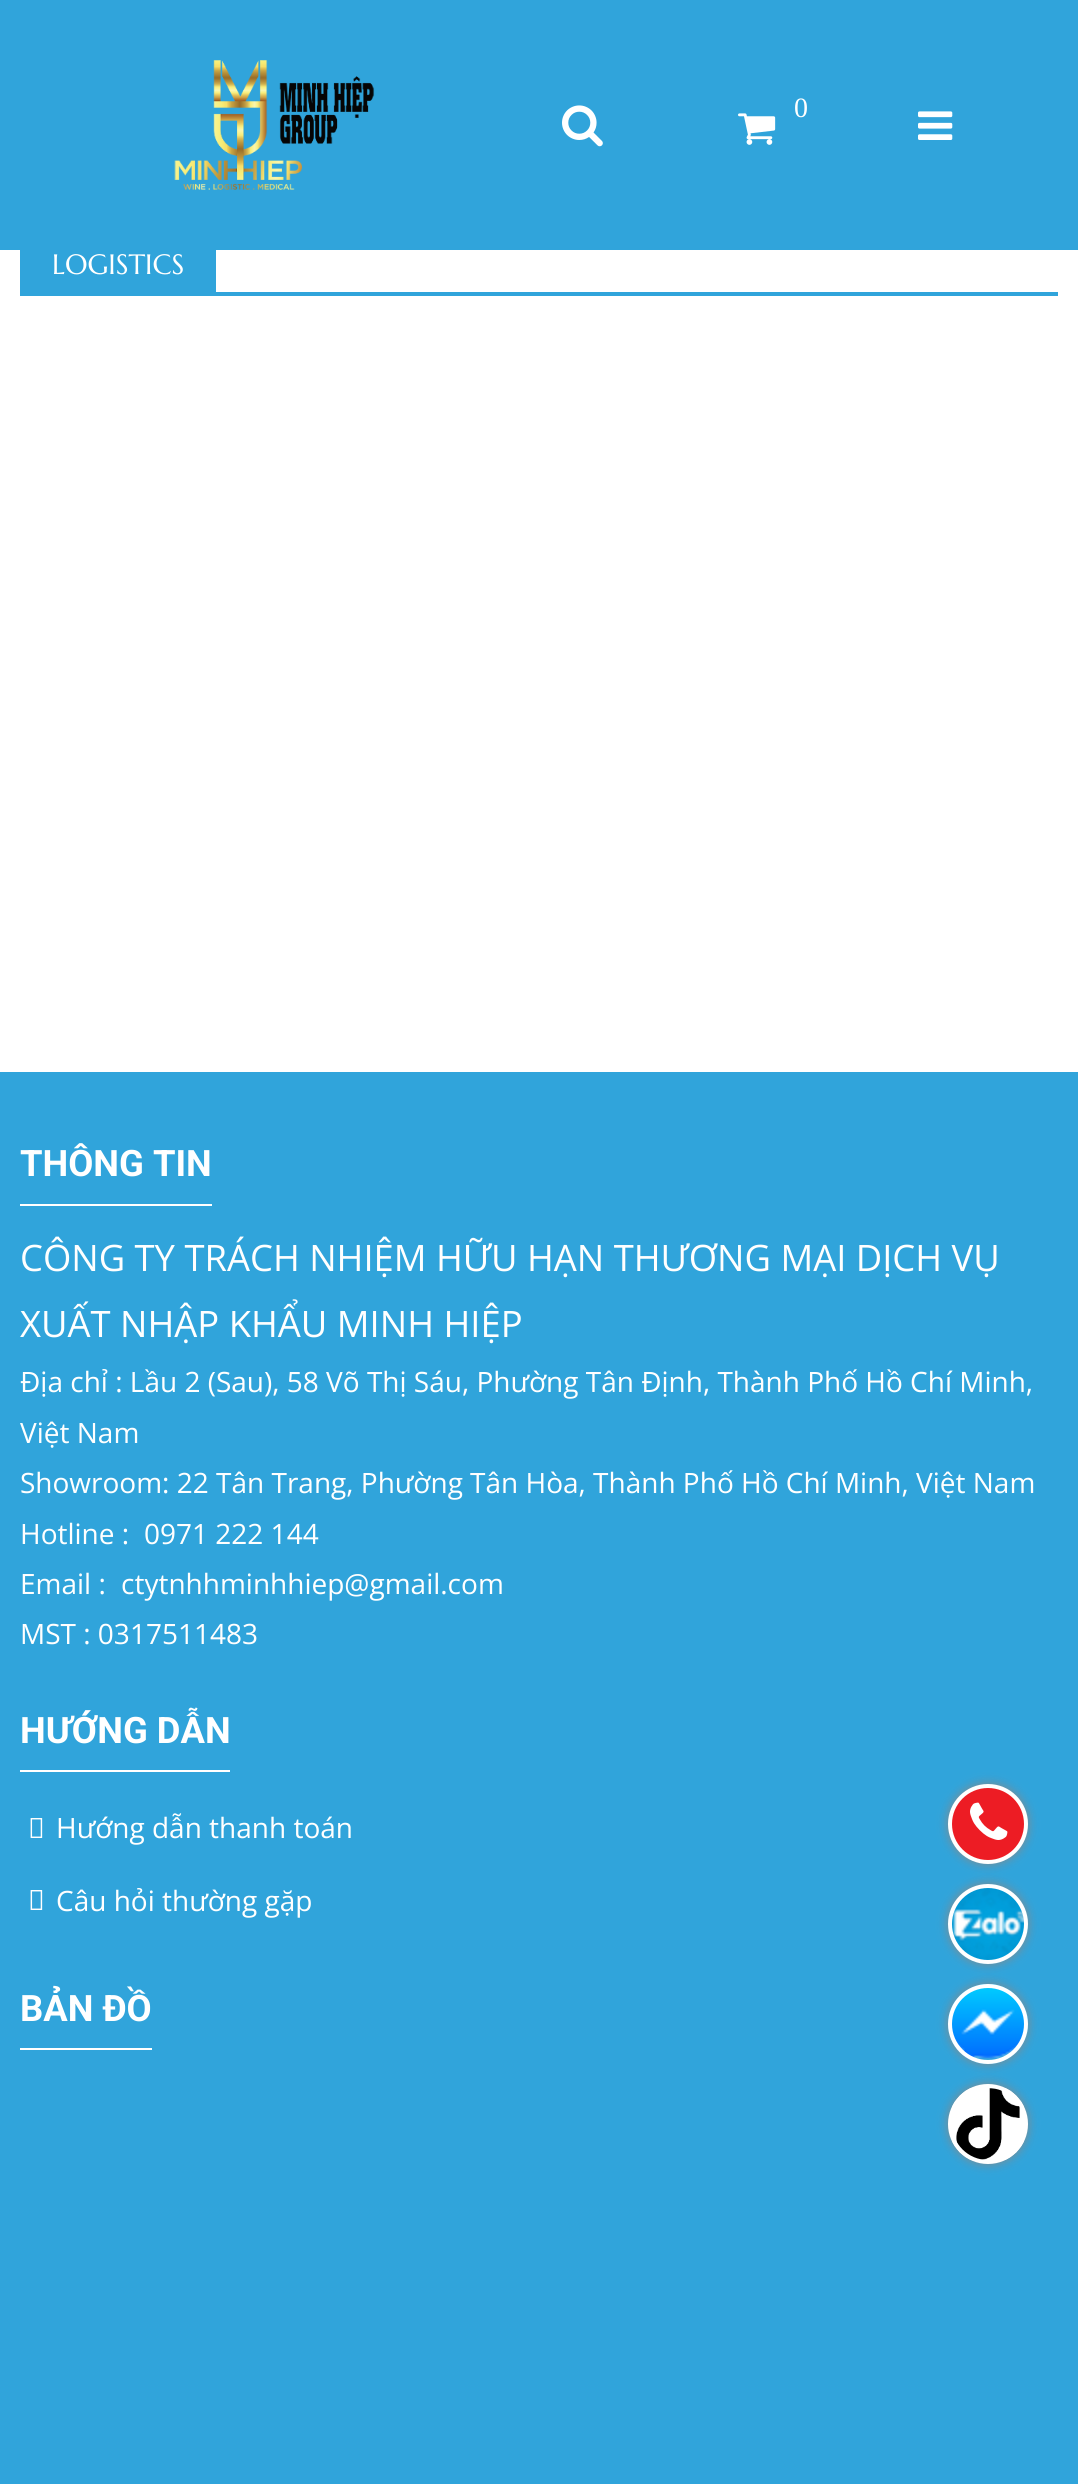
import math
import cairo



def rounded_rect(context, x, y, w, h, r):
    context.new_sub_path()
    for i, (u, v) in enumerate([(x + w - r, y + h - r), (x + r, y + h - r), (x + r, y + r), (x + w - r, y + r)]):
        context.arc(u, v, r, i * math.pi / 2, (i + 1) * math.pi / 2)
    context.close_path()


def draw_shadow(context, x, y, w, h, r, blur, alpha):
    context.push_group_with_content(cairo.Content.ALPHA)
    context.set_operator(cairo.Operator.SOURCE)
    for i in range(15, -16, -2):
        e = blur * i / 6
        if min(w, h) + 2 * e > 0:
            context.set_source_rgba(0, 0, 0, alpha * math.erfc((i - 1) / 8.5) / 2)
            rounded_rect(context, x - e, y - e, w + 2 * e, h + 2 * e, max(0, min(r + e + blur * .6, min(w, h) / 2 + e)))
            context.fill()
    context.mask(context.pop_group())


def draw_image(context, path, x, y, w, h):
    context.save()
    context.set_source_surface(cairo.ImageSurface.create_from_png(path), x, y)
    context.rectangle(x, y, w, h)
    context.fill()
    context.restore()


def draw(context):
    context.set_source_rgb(1, 1, 1)
    context.paint()
    context.set_source_rgb(48 / 255, 164 / 255, 219 / 255)
    context.rectangle(0, 0, 1078, 250)
    context.fill()
    draw_image(context, "images/1.png", 174, 60, 201, 130)
    draw_image(context, "images/2.png", 562, 105, 41, 42)
    draw_image(context, "images/3.png", 738, 113, 38, 32)
    draw_image(context, "images/4.png", 918, 111, 35, 29)
    context.rectangle(20, 250, 196, 42)
    context.fill()
    context.rectangle(20, 292, 1038, 4)
    context.fill()
    context.rectangle(0, 1072, 1078, 1412)
    context.fill()
    context.set_source_rgb(1, 1, 1)
    context.rectangle(20, 1204, 192, 2)
    context.fill()
    context.rectangle(20, 1770, 210, 2)
    context.fill()
    draw_image(context, "images/5.png", 30, 1818, 13, 20)
    draw_image(context, "images/5.png", 30, 1890, 13, 20)
    context.rectangle(20, 2048, 132, 2)
    context.fill()
    context.set_source_rgb(136 / 255, 136 / 255, 136 / 255)
    draw_shadow(context, 948, 1784, 80, 80, 40, 5, 1)
    context.set_source_rgb(237 / 255, 28 / 255, 36 / 255)
    context.arc(988, 1824, 38, 0, 2 * math.pi)
    context.fill_preserve()
    context.set_source_rgb(1, 1, 1)
    context.set_line_width(4)
    context.stroke()
    draw_image(context, "images/6.png", 970, 1802, 38, 38)
    context.set_source_rgb(136 / 255, 136 / 255, 136 / 255)
    draw_shadow(context, 948, 1884, 80, 80, 40, 5, 1)
    draw_image(context, "images/7.png", 948, 1884, 80, 80)
    context.arc(988, 1924, 38, 0, 2 * math.pi)
    context.set_source_rgb(1, 1, 1)
    context.stroke()
    context.save()
    context.set_fill_rule(cairo.FillRule.EVEN_ODD)
    context.new_path()
    context.move_to(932, 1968)
    context.line_to(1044, 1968)
    context.line_to(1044, 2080)
    context.line_to(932, 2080)
    context.close_path()
    context.move_to(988, 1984)
    context.curve_to(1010, 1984, 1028, 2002, 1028, 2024)
    context.curve_to(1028, 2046, 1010, 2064, 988, 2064)
    context.curve_to(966, 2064, 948, 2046, 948, 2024)
    context.curve_to(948, 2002, 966, 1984, 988, 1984)
    context.close_path()
    context.clip()
    context.set_source_rgb(136 / 255, 136 / 255, 136 / 255)
    draw_shadow(context, 948, 1984, 80, 80, 40, 5, 1)
    context.restore()
    draw_image(context, "images/8.png", 948, 1984, 80, 77)
    context.arc(988, 2024, 38, 0, 2 * math.pi)
    context.stroke()
    context.set_source_rgb(136 / 255, 136 / 255, 136 / 255)
    draw_shadow(context, 948, 2084, 80, 80, 40, 5, 1)
    draw_image(context, "images/9.png", 952, 2088, 72, 72)
    context.arc(988, 2124, 38, 0, 2 * math.pi)
    context.set_source_rgb(1, 1, 1)
    context.stroke()
    context.select_font_face("Liberation Serif")
    context.set_font_size(28)
    context.move_to(794, 117)
    context.show_text("0")
    context.select_font_face("Marcellus")
    context.move_to(52, 274)
    context.show_text("LOGISTICS")
    context.select_font_face("Roboto", cairo.FontSlant.NORMAL, cairo.FontWeight.BOLD)
    context.set_font_size(36.4)
    context.move_to(20, 1176)
    context.show_text("THÔNG TIN")
    context.select_font_face("Open Sans")
    context.move_to(20, 1271)
    context.show_text("CÔNG TY TRÁCH NHIỆM HỮU HẠN THƯƠNG MẠI DỊCH VỤ")
    context.move_to(20, 1337)
    context.show_text("XUẤT NHẬP KHẨU MINH HIỆP")
    context.set_font_size(28)
    context.move_to(20, 1392)
    context.show_text("Địa chỉ : Lầu 2 (Sau), 58 Võ Thị Sáu, Phường Tân Định, Thành Phố Hồ Chí Minh,")
    context.move_to(20, 1443)
    context.show_text("Việt Nam")
    context.move_to(20, 1493)
    context.show_text("Showroom: 22 Tân Trang, Phường Tân Hòa, Thành Phố Hồ Chí Minh, Việt Nam")
    context.move_to(20, 1544)
    context.show_text("Hotline :")
    context.move_to(144, 1544)
    context.show_text("0971 222 144")
    context.move_to(20, 1594)
    context.show_text("Email :")
    context.move_to(121, 1594)
    context.show_text("ctytnhhminhhiep@gmail.com")
    context.move_to(20, 1644)
    context.show_text("MST : 0317511483")
    context.select_font_face("Roboto", cairo.FontSlant.NORMAL, cairo.FontWeight.BOLD)
    context.set_font_size(36.4)
    context.move_to(20, 1743)
    context.show_text("HƯỚNG DẪN")
    context.select_font_face("Open Sans")
    context.set_font_size(28)
    context.move_to(56, 1838)
    context.show_text("Hướng dẫn thanh toán")
    context.move_to(56, 1911)
    context.show_text("Câu hỏi thường gặp")
    context.select_font_face("Roboto", cairo.FontSlant.NORMAL, cairo.FontWeight.BOLD)
    context.set_font_size(36.4)
    context.move_to(20, 2021)
    context.show_text("BẢN ĐỒ")


surface = cairo.ImageSurface(cairo.Format.RGB24, 1078, 2484)
context = cairo.Context(surface)
options = cairo.FontOptions()
options.set_hint_metrics(cairo.HintMetrics.OFF)
options.set_hint_style(cairo.HintStyle.NONE)
context.set_font_options(options)
context.set_miter_limit(4)
draw(context)
surface.write_to_png("out.png")
